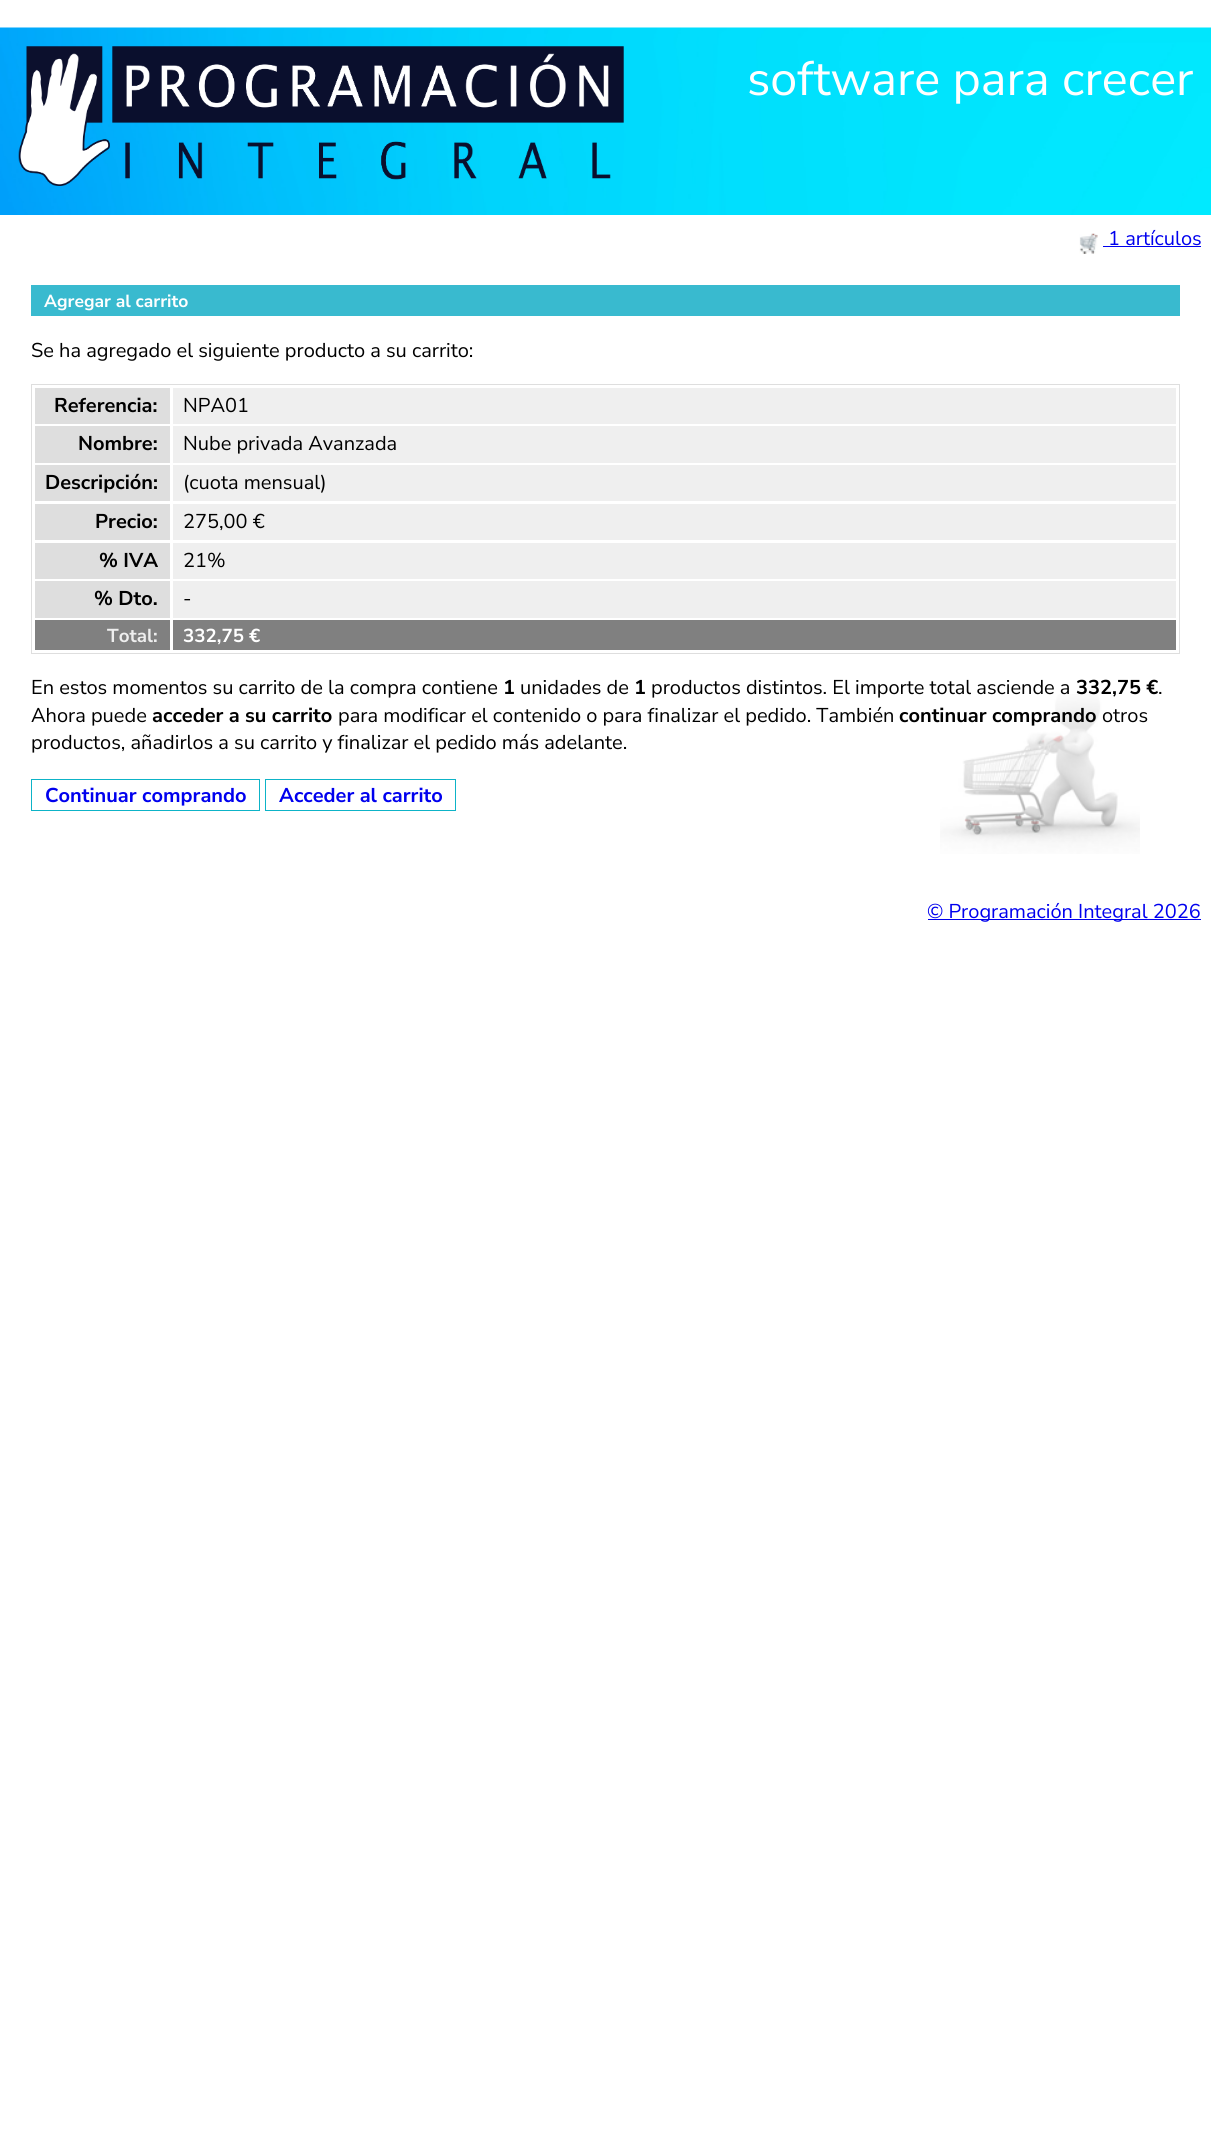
import math
import cairo



def draw_image(context, path, x, y, w, h):
    context.save()
    context.set_source_surface(cairo.ImageSurface.create_from_png(path), x, y)
    context.rectangle(x, y, w, h)
    context.fill()
    context.restore()


def draw(context):
    context.set_source_rgb(1, 1, 1)
    context.paint()
    draw_image(context, "images/1.png", 0, 27, 1211, 188)
    draw_image(context, "images/2.png", 18, 46, 606, 140)
    draw_image(context, "images/3.png", 1079, 233, 19, 21)
    context.set_source_rgb(0, 0, 238 / 255)
    context.rectangle(1103, 246, 98, 1)
    context.fill()
    draw_image(context, "images/4.png", 940, 694, 200, 160)
    context.set_source_rgb(57 / 255, 186 / 255, 207 / 255)
    context.rectangle(31, 285, 1149, 31)
    context.fill()
    context.rectangle(31.5, 384.5, 1148, 269)
    context.set_source_rgb(222 / 255, 222 / 255, 222 / 255)
    context.set_line_width(1)
    context.stroke()
    context.rectangle(35, 388, 135, 36)
    context.fill()
    context.set_source_rgb(239 / 255, 239 / 255, 239 / 255)
    context.rectangle(173, 388, 1003, 36)
    context.fill()
    context.set_source_rgb(222 / 255, 222 / 255, 222 / 255)
    context.rectangle(35, 426, 135, 37)
    context.fill()
    context.set_source_rgb(239 / 255, 239 / 255, 239 / 255)
    context.rectangle(173, 426, 1003, 37)
    context.fill()
    context.set_source_rgb(222 / 255, 222 / 255, 222 / 255)
    context.rectangle(35, 465, 135, 36)
    context.fill()
    context.set_source_rgb(239 / 255, 239 / 255, 239 / 255)
    context.rectangle(173, 465, 1003, 36)
    context.fill()
    context.set_source_rgb(222 / 255, 222 / 255, 222 / 255)
    context.rectangle(35, 504, 135, 36)
    context.fill()
    context.set_source_rgb(239 / 255, 239 / 255, 239 / 255)
    context.rectangle(173, 504, 1003, 36)
    context.fill()
    context.set_source_rgb(222 / 255, 222 / 255, 222 / 255)
    context.rectangle(35, 543, 135, 36)
    context.fill()
    context.set_source_rgb(239 / 255, 239 / 255, 239 / 255)
    context.rectangle(173, 543, 1003, 36)
    context.fill()
    context.set_source_rgb(222 / 255, 222 / 255, 222 / 255)
    context.rectangle(35, 581, 135, 37)
    context.fill()
    context.set_source_rgb(239 / 255, 239 / 255, 239 / 255)
    context.rectangle(173, 581, 1003, 37)
    context.fill()
    context.set_source_rgb(128 / 255, 128 / 255, 128 / 255)
    context.rectangle(35, 620, 135, 30)
    context.fill()
    context.rectangle(173, 620, 1003, 30)
    context.fill()
    context.rectangle(31.5, 779.5, 228, 31)
    context.set_source_rgb(13 / 255, 179 / 255, 199 / 255)
    context.stroke()
    context.rectangle(265.5, 779.5, 190, 31)
    context.stroke()
    context.set_source_rgb(0, 0, 238 / 255)
    context.rectangle(928, 919, 273, 1)
    context.fill()
    context.select_font_face("Nunito Sans")
    context.set_font_size(48.5)
    context.set_source_rgb(1, 1, 1)
    context.move_to(747, 95)
    context.show_text("software para crecer")
    context.set_font_size(20)
    context.set_source_rgb(0, 0, 238 / 255)
    context.move_to(1108, 245)
    context.show_text("1 artículos")
    context.select_font_face("Nunito Sans", cairo.FontSlant.NORMAL, cairo.FontWeight.BOLD)
    context.set_font_size(17.5)
    context.set_source_rgb(1, 1, 1)
    context.move_to(44, 307)
    context.show_text("Agregar al carrito")
    context.select_font_face("Nunito Sans")
    context.set_font_size(20)
    context.set_source_rgb(0, 0, 0)
    context.move_to(31, 357)
    context.show_text("Se ha agregado el siguiente producto a su carrito:")
    context.select_font_face("Nunito Sans", cairo.FontSlant.NORMAL, cairo.FontWeight.BOLD)
    context.move_to(54, 412)
    context.show_text("Referencia:")
    context.select_font_face("Nunito Sans")
    context.move_to(183, 412)
    context.show_text("NPA01")
    context.select_font_face("Nunito Sans", cairo.FontSlant.NORMAL, cairo.FontWeight.BOLD)
    context.move_to(78, 450)
    context.show_text("Nombre:")
    context.select_font_face("Nunito Sans")
    context.move_to(183, 450)
    context.show_text("Nube privada Avanzada")
    context.select_font_face("Nunito Sans", cairo.FontSlant.NORMAL, cairo.FontWeight.BOLD)
    context.move_to(45, 489)
    context.show_text("Descripción:")
    context.select_font_face("Nunito Sans")
    context.move_to(183, 489)
    context.show_text("(cuota mensual)")
    context.select_font_face("Nunito Sans", cairo.FontSlant.NORMAL, cairo.FontWeight.BOLD)
    context.move_to(95, 528)
    context.show_text("Precio:")
    context.select_font_face("Nunito Sans")
    context.move_to(183, 528)
    context.show_text("275,00 €")
    context.select_font_face("Nunito Sans", cairo.FontSlant.NORMAL, cairo.FontWeight.BOLD)
    context.move_to(99, 567)
    context.show_text("% IVA")
    context.select_font_face("Nunito Sans")
    context.move_to(183, 567)
    context.show_text("21%")
    context.select_font_face("Nunito Sans", cairo.FontSlant.NORMAL, cairo.FontWeight.BOLD)
    context.move_to(94, 605)
    context.show_text("% Dto.")
    context.select_font_face("Nunito Sans")
    context.move_to(183, 605)
    context.show_text("-")
    context.select_font_face("Nunito Sans", cairo.FontSlant.NORMAL, cairo.FontWeight.BOLD)
    context.set_font_size(18.75)
    context.set_source_rgb(238 / 255, 238 / 255, 238 / 255)
    context.move_to(107, 642)
    context.show_text("Total:")
    context.set_source_rgb(1, 1, 1)
    context.move_to(183, 642)
    context.show_text("332,75 €")
    context.select_font_face("Nunito Sans")
    context.set_font_size(20)
    context.set_source_rgb(0, 0, 0)
    context.move_to(31, 694)
    context.show_text("En estos momentos su carrito de la compra contiene")
    context.select_font_face("Nunito Sans", cairo.FontSlant.NORMAL, cairo.FontWeight.BOLD)
    context.move_to(503, 694)
    context.show_text("1")
    context.select_font_face("Nunito Sans")
    context.move_to(520, 694)
    context.show_text("unidades de")
    context.select_font_face("Nunito Sans", cairo.FontSlant.NORMAL, cairo.FontWeight.BOLD)
    context.move_to(634, 694)
    context.show_text("1")
    context.select_font_face("Nunito Sans")
    context.move_to(651, 694)
    context.show_text("productos distintos. El importe total asciende a")
    context.select_font_face("Nunito Sans", cairo.FontSlant.NORMAL, cairo.FontWeight.BOLD)
    context.move_to(1076, 694)
    context.show_text("332,75 €")
    context.select_font_face("Nunito Sans")
    context.move_to(1158, 694)
    context.show_text(".")
    context.move_to(31, 722)
    context.show_text("Ahora puede")
    context.select_font_face("Nunito Sans", cairo.FontSlant.NORMAL, cairo.FontWeight.BOLD)
    context.move_to(152, 722)
    context.show_text("acceder a su carrito")
    context.select_font_face("Nunito Sans")
    context.move_to(338, 722)
    context.show_text("para modificar el contenido o para finalizar el pedido. También")
    context.select_font_face("Nunito Sans", cairo.FontSlant.NORMAL, cairo.FontWeight.BOLD)
    context.move_to(899, 722)
    context.show_text("continuar comprando")
    context.select_font_face("Nunito Sans")
    context.move_to(1102, 722)
    context.show_text("otros")
    context.move_to(31, 749)
    context.show_text("productos, añadirlos a su carrito y finalizar el pedido más adelante.")
    context.select_font_face("Nunito Sans", cairo.FontSlant.NORMAL, cairo.FontWeight.BOLD)
    context.set_source_rgb(0, 0, 238 / 255)
    context.move_to(45, 802)
    context.show_text("Continuar comprando")
    context.move_to(279, 802)
    context.show_text("Acceder al carrito")
    context.select_font_face("Nunito Sans")
    context.move_to(927, 918)
    context.show_text("© Programación Integral 2026")


surface = cairo.ImageSurface(cairo.Format.RGB24, 1211, 2152)
context = cairo.Context(surface)
options = cairo.FontOptions()
options.set_hint_metrics(cairo.HintMetrics.OFF)
options.set_hint_style(cairo.HintStyle.NONE)
context.set_font_options(options)
context.set_miter_limit(4)
draw(context)
surface.write_to_png("out.png")
